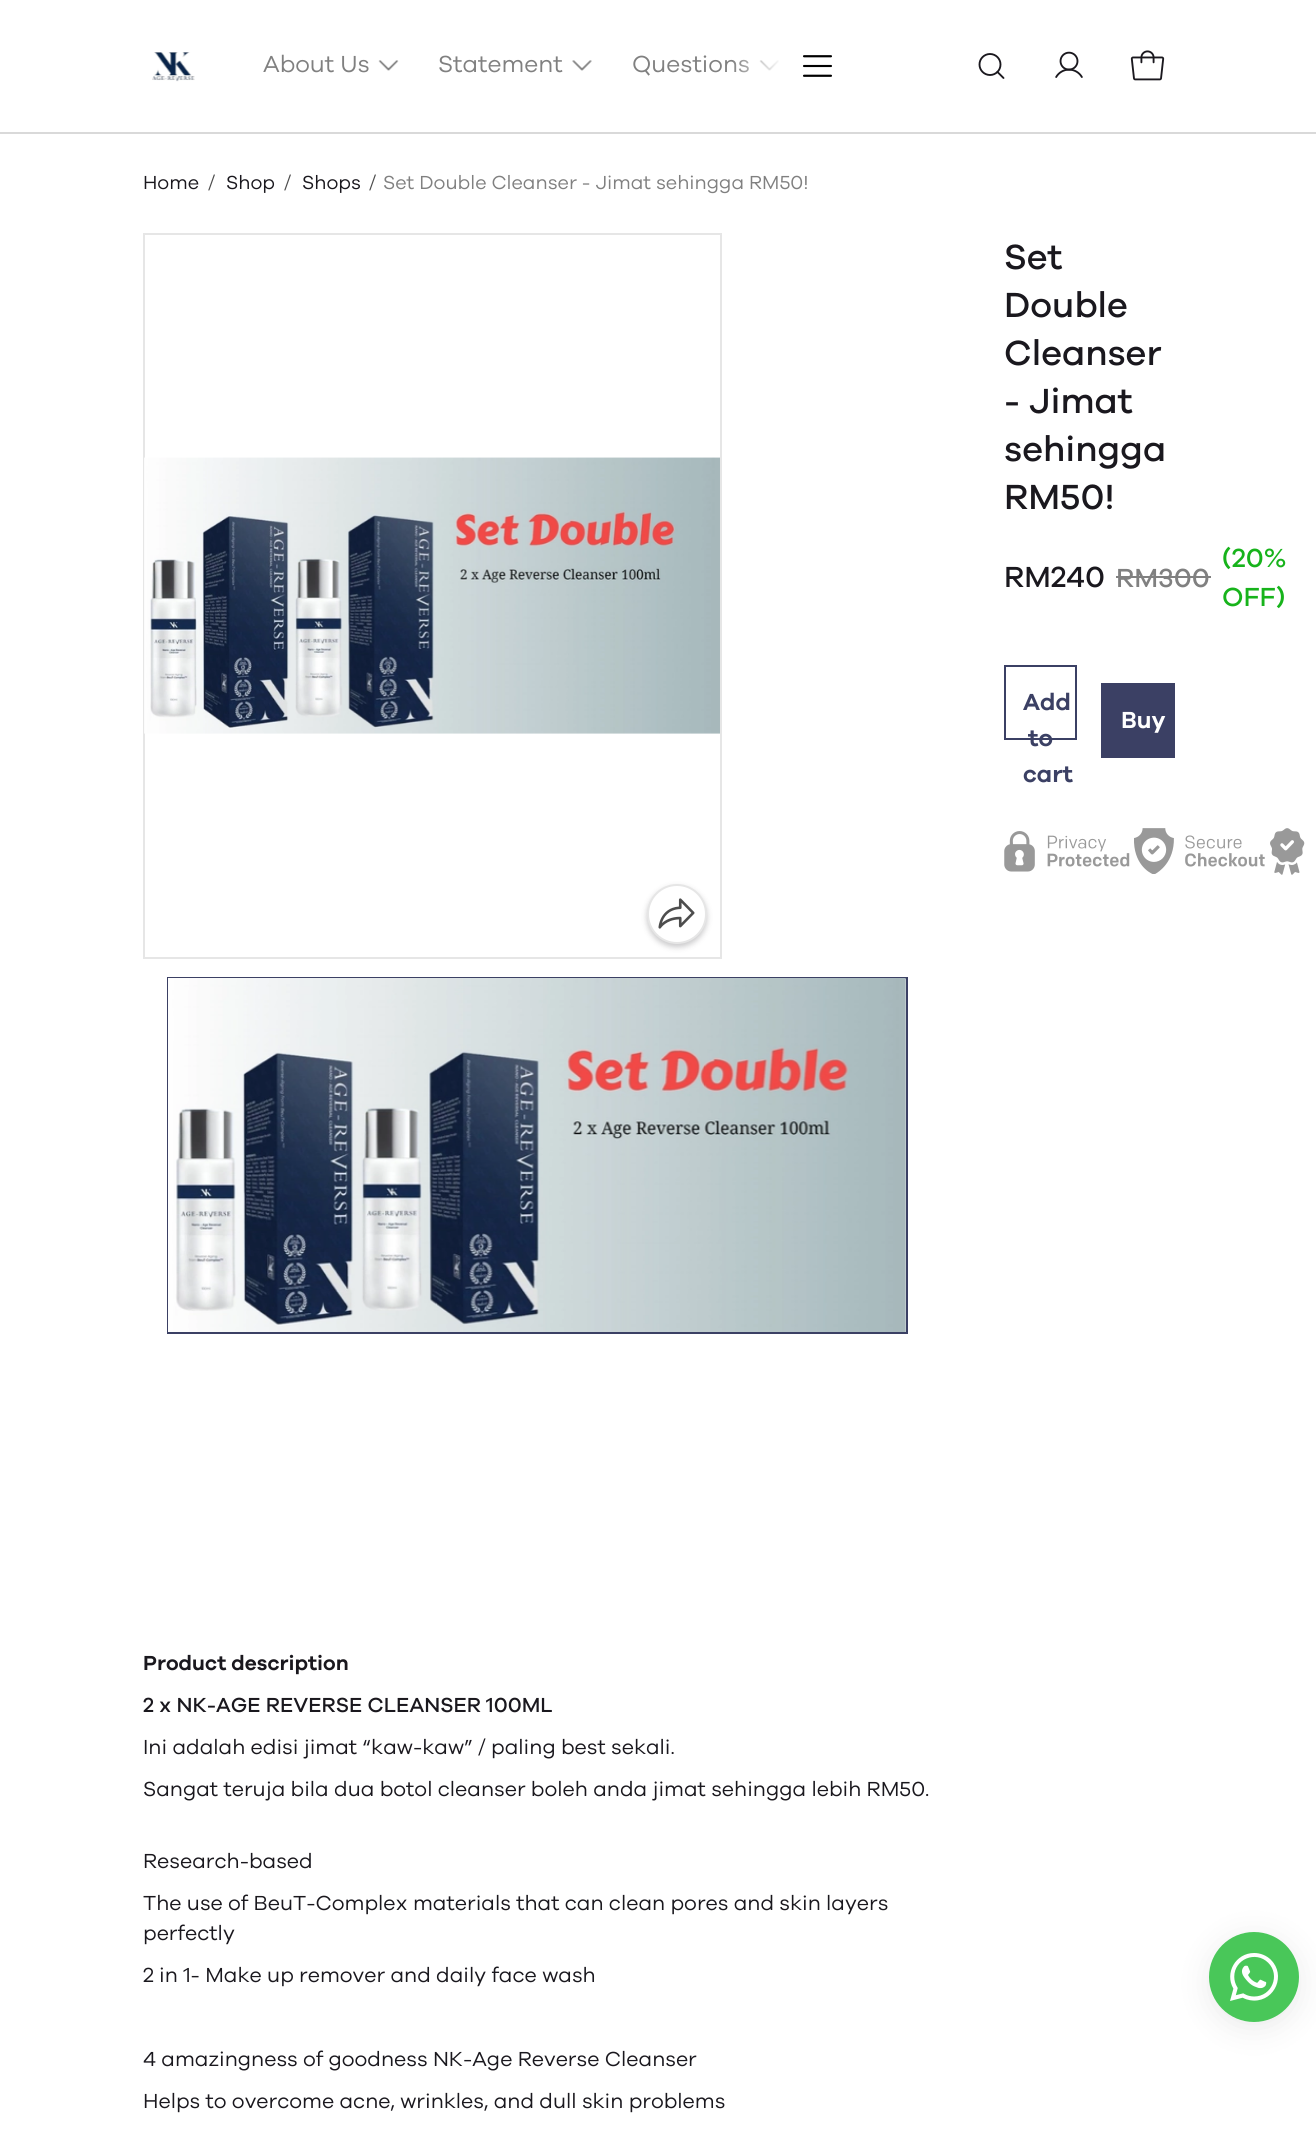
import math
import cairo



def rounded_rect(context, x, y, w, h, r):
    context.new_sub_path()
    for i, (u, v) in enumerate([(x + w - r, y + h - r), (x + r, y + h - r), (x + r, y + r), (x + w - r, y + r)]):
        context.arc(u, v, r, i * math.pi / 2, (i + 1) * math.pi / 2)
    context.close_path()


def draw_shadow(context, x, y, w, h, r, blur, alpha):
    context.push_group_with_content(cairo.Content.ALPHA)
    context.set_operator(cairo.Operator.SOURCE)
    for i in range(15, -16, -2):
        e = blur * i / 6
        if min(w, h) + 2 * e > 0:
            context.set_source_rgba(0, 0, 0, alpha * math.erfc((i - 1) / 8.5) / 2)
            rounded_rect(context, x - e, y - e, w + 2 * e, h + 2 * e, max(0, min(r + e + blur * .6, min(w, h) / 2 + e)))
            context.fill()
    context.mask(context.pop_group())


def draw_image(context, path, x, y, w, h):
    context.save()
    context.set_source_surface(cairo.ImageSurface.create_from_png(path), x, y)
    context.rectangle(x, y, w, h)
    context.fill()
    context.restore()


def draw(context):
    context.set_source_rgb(1, 1, 1)
    context.paint()
    context.set_source_rgb(217 / 255, 217 / 255, 217 / 255)
    context.rectangle(0, 132, 1316, 2)
    context.fill()
    draw_image(context, "images/1.png", 152, 52, 43, 30)
    draw_image(context, "images/2.png", 378, 60, 21, 11)
    draw_image(context, "images/3.png", 572, 60, 20, 11)
    draw_image(context, "images/2.png", 759, 60, 21, 11)
    draw_image(context, "images/4.png", 803, 55, 29, 22)
    draw_image(context, "images/5.png", 978, 53, 27, 26)
    draw_image(context, "images/6.png", 1055, 51, 28, 27)
    draw_image(context, "images/7.png", 1130, 50, 35, 31)
    context.set_source_rgb(128 / 255, 128 / 255, 128 / 255)
    context.rectangle(1116, 576, 95, 2)
    context.fill()
    context.rectangle(1005, 666, 71, 73)
    context.set_source_rgb(59 / 255, 64 / 255, 100 / 255)
    context.stroke()
    context.rectangle(1101, 683, 74, 75)
    context.fill()
    draw_image(context, "images/8.png", 1004, 831, 126, 41)
    draw_image(context, "images/9.png", 1134, 828, 131, 46)
    draw_image(context, "images/10.png", 1270, 828, 35, 47)
    context.rectangle(144, 234, 577, 724)
    context.set_source_rgb(230 / 255, 230 / 255, 230 / 255)
    context.stroke()
    draw_image(context, "images/11.png", 144, 457, 576, 277)
    context.set_source_rgb(26 / 255, 24 / 255, 30 / 255)
    draw_shadow(context, 647, 887, 60, 60, 30, 3, 0.24)
    context.set_source_rgb(1, 1, 1)
    context.arc(677, 914, 29, 0, 2 * math.pi)
    context.fill_preserve()
    context.set_source_rgb(230 / 255, 230 / 255, 230 / 255)
    context.stroke()
    draw_image(context, "images/12.png", 658, 898, 37, 31)
    context.rectangle(168, 978, 739, 355)
    context.set_source_rgb(59 / 255, 64 / 255, 100 / 255)
    context.stroke()
    draw_image(context, "images/13.png", 168, 978, 738, 354)
    context.set_source_rgb(152 / 255, 152 / 255, 152 / 255)
    draw_shadow(context, 1209, 1938, 90, 90, 45, 15, 0.2)
    context.set_source_rgb(73 / 255, 199 / 255, 89 / 255)
    context.arc(1254, 1977, 45, 0, 2 * math.pi)
    context.fill()
    draw_image(context, "images/14.png", 1230, 1953, 48, 48)
    context.select_font_face("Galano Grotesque")
    context.set_font_size(24)
    context.set_source_rgb(128 / 255, 128 / 255, 128 / 255)
    context.move_to(263, 72)
    context.show_text("About Us")
    context.move_to(438, 72)
    context.show_text("Statement")
    context.move_to(632, 72)
    context.show_text("Questions")
    gradient = cairo.LinearGradient(731, 58, 791, 58)
    gradient.add_color_stop_rgba(0, 1, 1, 1, 0)
    gradient.add_color_stop_rgba(0.86, 1, 1, 1, 1)
    context.set_source(gradient)
    context.rectangle(732, 60, 48, 13)
    context.fill()
    context.set_font_size(19.5)
    context.set_source_rgb(26 / 255, 24 / 255, 30 / 255)
    context.move_to(143, 189)
    context.show_text("Home")
    context.set_source_rgb(77 / 255, 77 / 255, 77 / 255)
    context.move_to(208, 189)
    context.show_text("/")
    context.set_source_rgb(26 / 255, 24 / 255, 30 / 255)
    context.move_to(226, 189)
    context.show_text("Shop")
    context.set_source_rgb(77 / 255, 77 / 255, 77 / 255)
    context.move_to(284, 189)
    context.show_text("/")
    context.set_source_rgb(26 / 255, 24 / 255, 30 / 255)
    context.move_to(302, 189)
    context.show_text("Shops")
    context.set_source_rgb(77 / 255, 77 / 255, 77 / 255)
    context.move_to(369, 189)
    context.show_text("/")
    context.set_source_rgb(128 / 255, 128 / 255, 128 / 255)
    context.move_to(383, 189)
    context.show_text("Set Double Cleanser - Jimat sehingga RM50!")
    context.select_font_face("Galano Grotesque Medium")
    context.set_font_size(36)
    context.set_source_rgb(26 / 255, 24 / 255, 30 / 255)
    context.move_to(1004, 269)
    context.show_text("Set")
    context.move_to(1004, 317)
    context.show_text("Double")
    context.move_to(1004, 365)
    context.show_text("Cleanser")
    context.move_to(1004, 413)
    context.show_text("- Jimat")
    context.move_to(1004, 461)
    context.show_text("sehingga")
    context.move_to(1004, 509)
    context.show_text("RM50!")
    context.set_font_size(30)
    context.move_to(1004, 587)
    context.show_text("RM240")
    context.set_font_size(27)
    context.set_source_rgb(128 / 255, 128 / 255, 128 / 255)
    context.move_to(1116, 587)
    context.show_text("RM300")
    context.set_source_rgb(23 / 255, 179 / 255, 27 / 255)
    context.move_to(1222, 567)
    context.show_text("(20%")
    context.move_to(1222, 606)
    context.show_text("OFF)")
    context.select_font_face("Galano Grotesque SemiBold")
    context.set_font_size(24)
    context.set_source_rgb(59 / 255, 64 / 255, 100 / 255)
    context.move_to(1023, 710)
    context.show_text("Add")
    context.move_to(1028, 746)
    context.show_text("to")
    context.move_to(1023, 782)
    context.show_text("cart")
    context.set_source_rgb(1, 1, 1)
    context.move_to(1121, 728)
    context.show_text("Buy")
    context.set_font_size(21)
    context.set_source_rgb(26 / 255, 24 / 255, 30 / 255)
    context.move_to(143, 1670)
    context.show_text("Product description")
    context.select_font_face("Galano Grotesque Medium")
    context.move_to(143, 1712)
    context.show_text("2 x NK-AGE REVERSE CLEANSER 100ML")
    context.select_font_face("Galano Grotesque")
    context.move_to(143, 1754)
    context.show_text("Ini adalah edisi jimat “kaw-kaw” / paling best sekali.")
    context.move_to(143, 1796)
    context.show_text("Sangat teruja bila dua botol cleanser boleh anda jimat sehingga lebih RM50.")
    context.move_to(143, 1868)
    context.show_text("Research-based")
    context.move_to(143, 1910)
    context.show_text("The use of BeuT-Complex materials that can clean pores and skin layers")
    context.move_to(143, 1940)
    context.show_text("perfectly")
    context.move_to(143, 1982)
    context.show_text("2 in 1- Make up remover and daily face wash")
    context.move_to(143, 2066)
    context.show_text("4 amazingness of goodness NK-Age Reverse Cleanser")
    context.move_to(143, 2108)
    context.show_text("Helps to overcome acne, wrinkles, and dull skin problems")


surface = cairo.ImageSurface(cairo.Format.RGB24, 1316, 2130)
context = cairo.Context(surface)
options = cairo.FontOptions()
options.set_hint_metrics(cairo.HintMetrics.OFF)
options.set_hint_style(cairo.HintStyle.NONE)
context.set_font_options(options)
context.set_miter_limit(4)
draw(context)
surface.write_to_png("out.png")
